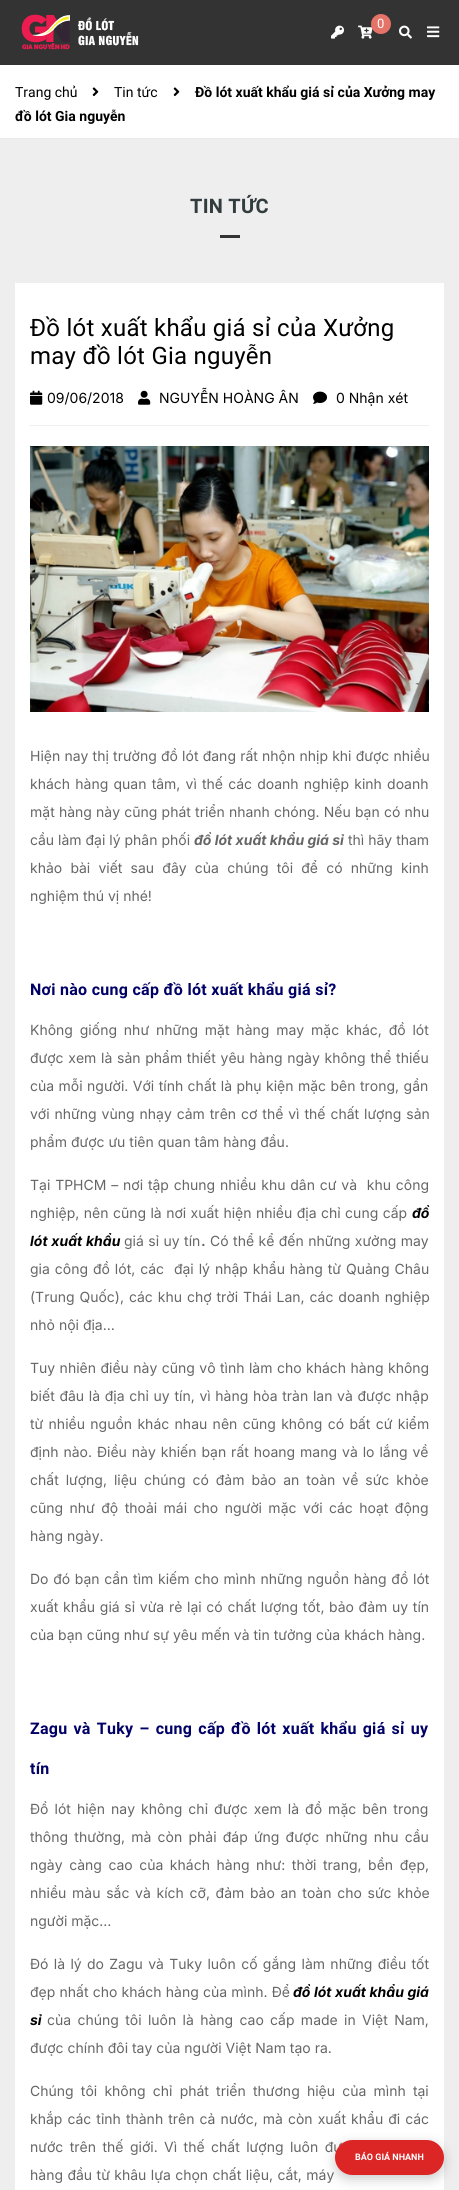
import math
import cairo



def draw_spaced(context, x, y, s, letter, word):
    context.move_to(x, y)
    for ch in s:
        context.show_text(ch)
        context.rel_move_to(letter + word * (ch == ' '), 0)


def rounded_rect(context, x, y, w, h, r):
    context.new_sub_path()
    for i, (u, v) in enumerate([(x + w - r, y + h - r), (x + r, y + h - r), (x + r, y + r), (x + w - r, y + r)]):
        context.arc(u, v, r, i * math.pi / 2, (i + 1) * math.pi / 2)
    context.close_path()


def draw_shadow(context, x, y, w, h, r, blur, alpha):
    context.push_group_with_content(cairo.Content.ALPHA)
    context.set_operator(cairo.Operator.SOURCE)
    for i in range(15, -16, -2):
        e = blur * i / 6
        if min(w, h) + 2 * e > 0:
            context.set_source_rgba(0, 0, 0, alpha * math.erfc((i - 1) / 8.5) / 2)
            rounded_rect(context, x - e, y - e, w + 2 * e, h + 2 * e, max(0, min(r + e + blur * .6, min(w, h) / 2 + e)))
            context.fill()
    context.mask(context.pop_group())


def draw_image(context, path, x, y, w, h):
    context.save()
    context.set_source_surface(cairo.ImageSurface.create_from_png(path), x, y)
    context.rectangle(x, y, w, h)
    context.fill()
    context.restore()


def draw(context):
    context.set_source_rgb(238 / 255, 238 / 255, 238 / 255)
    context.paint()
    context.set_source_rgb(51 / 255, 51 / 255, 51 / 255)
    context.rectangle(0, 0, 459, 65)
    context.fill()
    draw_image(context, "images/1.png", 21, 14, 118, 36)
    draw_image(context, "images/2.png", 358, 25, 15, 14)
    context.set_source_rgb(229 / 255, 115 / 255, 104 / 255)
    context.arc(381, 24, 10, 0, 2 * math.pi)
    context.fill()
    draw_image(context, "images/3.png", 331, 25, 13, 14)
    draw_image(context, "images/4.png", 399, 25, 13, 14)
    draw_image(context, "images/5.png", 427, 26, 13, 12)
    context.set_source_rgb(1, 1, 1)
    context.rectangle(0, 65, 459, 73)
    context.fill()
    context.set_source_rgb(235 / 255, 235 / 255, 235 / 255)
    context.rectangle(0, 138, 459, 1)
    context.fill()
    draw_image(context, "images/6.png", 92, 87, 7, 10)
    draw_image(context, "images/6.png", 173, 87, 7, 10)
    context.set_source_rgb(51 / 255, 51 / 255, 51 / 255)
    context.rectangle(220, 235, 20, 3)
    context.fill()
    context.set_source_rgb(1, 1, 1)
    context.rectangle(15, 283, 429, 1907)
    context.fill()
    context.set_source_rgb(238 / 255, 238 / 255, 238 / 255)
    context.rectangle(30, 425, 399, 1)
    context.fill()
    draw_image(context, "images/7.png", 30, 390, 13, 15)
    draw_image(context, "images/8.png", 138, 390, 13, 15)
    draw_image(context, "images/9.png", 313, 391, 14, 13)
    draw_image(context, "images/10.png", 30, 446, 399, 266)
    context.set_source_rgb(0, 0, 0)
    draw_shadow(context, 335, 2144, 109, 35, 17.5, 6, 0.2)
    context.select_font_face("Roboto")
    context.set_font_size(13)
    context.set_source_rgb(1, 1, 1)
    context.move_to(377, 28)
    context.show_text("0")
    context.set_font_size(14)
    context.set_source_rgb(0, 0, 0)
    context.move_to(15, 97)
    context.show_text("Trang chủ")
    context.move_to(114, 97)
    context.show_text("Tin tức")
    context.select_font_face("Roboto", cairo.FontSlant.NORMAL, cairo.FontWeight.BOLD)
    context.move_to(195, 97)
    context.show_text("Đồ lót xuất khẩu giá sỉ của Xưởng may")
    context.move_to(15, 121)
    context.show_text("đồ lót Gia nguyễn")
    context.set_font_size(20)
    context.set_source_rgb(50 / 255, 60 / 255, 63 / 255)
    draw_spaced(context, 190, 213, "TIN TỨC", 0.25, 0)
    context.select_font_face("Roboto")
    context.set_font_size(24)
    context.set_source_rgb(0, 0, 0)
    draw_spaced(context, 30, 336, "Đồ lót xuất khẩu giá sỉ của Xưởng", 0.25, 0)
    draw_spaced(context, 30, 364, "may đồ lót Gia nguyễn", 0.25, 0)
    context.select_font_face("Inter")
    context.set_font_size(14)
    context.move_to(47, 403)
    context.show_text("09/06/2018")
    context.move_to(159, 403)
    context.show_text("NGUYỄN HOÀNG ÂN")
    context.move_to(336, 403)
    context.show_text("0 Nhận xét")
    context.set_source_rgb(102 / 255, 102 / 255, 102 / 255)
    draw_spaced(context, 30, 761, "Hiện nay thị trường đồ lót đang rất nhộn nhịp khi được nhiều", 0, 0.25)
    draw_spaced(context, 30, 789, "khách hàng quan tâm, vì thế các doanh nghiệp kinh doanh", 0, 1.25)
    draw_spaced(context, 30, 817, "mặt hàng này cũng phát triển nhanh chóng. Nếu bạn có nhu", 0, 0.25)
    context.move_to(30, 845)
    context.show_text("cầu làm đại lý phân phối")
    context.select_font_face("Inter", cairo.FontSlant.ITALIC, cairo.FontWeight.BOLD)
    context.move_to(194, 845)
    context.show_text("đồ lót xuất khẩu giá sỉ")
    context.select_font_face("Inter")
    context.move_to(348, 845)
    context.show_text("thì hãy tham")
    draw_spaced(context, 30, 873, "khảo bài viết sau đây của chúng tôi để có những kinh", 0, 4.25)
    context.move_to(30, 901)
    context.show_text("nghiệm thú vị nhé!")
    context.select_font_face("Roboto", cairo.FontSlant.NORMAL, cairo.FontWeight.BOLD)
    context.set_font_size(16)
    context.set_source_rgb(0, 0, 102 / 255)
    draw_spaced(context, 30, 995, "Nơi nào cung cấp đồ lót xuất khẩu giá sỉ?", 0.28, 0)
    context.select_font_face("Inter")
    context.set_font_size(14)
    context.set_source_rgb(102 / 255, 102 / 255, 102 / 255)
    draw_spaced(context, 30, 1035, "Không giống như những mặt hàng may mặc khác, đồ lót", 0, 2.9)
    draw_spaced(context, 30, 1063, "được xem là sản phẩm thiết yêu hàng ngày không thể thiếu", 0, 0.75)
    draw_spaced(context, 30, 1091, "của mỗi người. Với tính chất là phụ kiện mặc bên trong, gần", 0, 0.5)
    draw_spaced(context, 30, 1119, "với những vùng nhạy cảm trên cơ thể vì thế chất lượng sản", 0, 1)
    context.move_to(30, 1147)
    context.show_text("phẩm được ưu tiên quan tâm hàng đầu.")
    draw_spaced(context, 30, 1190, "Tại TPHCM – nơi tập chung nhiều khu dân cư và  khu công", 0, 0.9)
    draw_spaced(context, 30, 1218, "nghiệp, nên cũng là nơi xuất hiện nhiều địa chỉ cung cấp", 0, 0.5)
    context.select_font_face("Inter", cairo.FontSlant.ITALIC, cairo.FontWeight.BOLD)
    context.set_source_rgb(0, 0, 0)
    context.move_to(412, 1218)
    context.show_text("đồ")
    draw_spaced(context, 30, 1246, "lót xuất khẩu", 0, 0.5)
    context.select_font_face("Inter")
    context.set_source_rgb(102 / 255, 102 / 255, 102 / 255)
    draw_spaced(context, 124, 1246, "giá sỉ uy tín", 0, 0.5)
    context.select_font_face("Inter", cairo.FontSlant.NORMAL, cairo.FontWeight.BOLD)
    context.move_to(201, 1246)
    context.show_text(".")
    context.select_font_face("Inter")
    draw_spaced(context, 210, 1246, "Có thể kể đến những xưởng may", 0, 0.5)
    draw_spaced(context, 30, 1274, "gia công đồ lót, các  đại lý nhập khẩu hàng từ Quảng Châu", 0, 1)
    draw_spaced(context, 30, 1302, "(Trung Quốc), các khu chợ trời Thái Lan, các doanh nghiệp", 0, 1)
    context.move_to(30, 1330)
    context.show_text("nhỏ nội địa…")
    draw_spaced(context, 30, 1373, "Tuy nhiên điều này cũng vô tình làm cho khách hàng không", 0, 0.5)
    draw_spaced(context, 30, 1401, "biết đâu là địa chỉ uy tín, vì hàng hòa tràn lan và được nhập", 0, 0.75)
    draw_spaced(context, 30, 1429, "từ nhiều nguồn khác nhau nên cũng không có bất cứ kiểm", 0, 1.4)
    draw_spaced(context, 30, 1457, "định nào. Điều này khiến bạn rất hoang mang và lo lắng về", 0, 1)
    draw_spaced(context, 30, 1485, "chất lượng, liệu chúng có đảm bảo an toàn về sức khỏe", 0, 3)
    draw_spaced(context, 30, 1513, "cũng như độ thoải mái cho người mặc với các hoạt động", 0, 2.5)
    context.move_to(30, 1541)
    context.show_text("hàng ngày.")
    draw_spaced(context, 30, 1584, "Do đó bạn cần tìm kiếm cho mình những nguồn hàng đồ lót", 0, 0.75)
    draw_spaced(context, 30, 1612, "xuất khẩu giá sỉ vừa rẻ lại có chất lượng tốt, bảo đảm uy tín", 0, 0.75)
    context.move_to(30, 1640)
    context.show_text("của bạn cũng như sự yêu mến và tin tưởng của khách hàng.")
    context.select_font_face("Roboto", cairo.FontSlant.NORMAL, cairo.FontWeight.BOLD)
    context.set_font_size(16)
    context.set_source_rgb(0, 0, 102 / 255)
    draw_spaced(context, 30, 1734, "Zagu và Tuky – cung cấp đồ lót xuất khẩu giá sỉ uy", 0.28, 1.75)
    draw_spaced(context, 30, 1774, "tín", 0.28, 0)
    context.select_font_face("Inter")
    context.set_font_size(14)
    context.set_source_rgb(102 / 255, 102 / 255, 102 / 255)
    draw_spaced(context, 30, 1814, "Đồ lót hiện nay không chỉ được xem là đồ mặc bên trong", 0, 2.1)
    draw_spaced(context, 30, 1842, "thông thường, mà còn phải đáp ứng được những nhu cầu", 0, 2.25)
    draw_spaced(context, 30, 1870, "ngày càng cao của khách hàng như: thời trang, bền đẹp,", 0, 2.6)
    draw_spaced(context, 30, 1898, "nhiều màu sắc và kích cỡ, đảm bảo an toàn cho sức khỏe", 0, 1.75)
    context.move_to(30, 1926)
    context.show_text("người mặc…")
    draw_spaced(context, 30, 1969, "Đó là lý do Zagu và Tuky luôn cố gắng làm những điều tốt", 0, 1.4)
    draw_spaced(context, 30, 1997, "đẹp nhất cho khách hàng của mình. Để", 0, 0.25)
    context.select_font_face("Inter", cairo.FontSlant.ITALIC, cairo.FontWeight.BOLD)
    context.set_source_rgb(0, 0, 0)
    draw_spaced(context, 293, 1997, "đồ lót xuất khẩu giá", 0, 0.25)
    context.move_to(30, 2025)
    context.show_text("sỉ")
    context.select_font_face("Inter")
    context.set_source_rgb(102 / 255, 102 / 255, 102 / 255)
    draw_spaced(context, 47, 2025, "của chúng tôi luôn là hàng cao cấp made in Việt Nam,", 0, 2.4)
    context.move_to(30, 2053)
    context.show_text("được chính đôi tay của người Việt Nam tạo ra.")
    draw_spaced(context, 30, 2096, "Chúng tôi không chỉ phát triển thương hiệu của mình tại", 0, 3.25)
    draw_spaced(context, 30, 2124, "khắp các tỉnh thành trên cả nước, mà còn xuất khẩu đi các", 0, 1.1)
    draw_spaced(context, 30, 2152, "nước trên thế giới. Vì thế chất lượng luôn đư", 0, 2.5)
    draw_spaced(context, 30, 2180, "hàng đầu từ khâu lựa chọn chất liệu, cắt, máy", 0, 0.5)
    context.set_source_rgb(220 / 255, 38 / 255, 38 / 255)
    rounded_rect(context, 335, 2140, 109, 35, 17.5)
    context.fill()
    context.select_font_face("Roboto", cairo.FontSlant.NORMAL, cairo.FontWeight.BOLD)
    context.set_font_size(9)
    context.set_source_rgb(1, 1, 1)
    context.move_to(355, 2160)
    context.show_text("BÁO GIÁ NHANH")


surface = cairo.ImageSurface(cairo.Format.RGB24, 459, 2190)
context = cairo.Context(surface)
options = cairo.FontOptions()
options.set_hint_metrics(cairo.HintMetrics.OFF)
options.set_hint_style(cairo.HintStyle.NONE)
context.set_font_options(options)
context.set_miter_limit(4)
draw(context)
surface.write_to_png("out.png")
